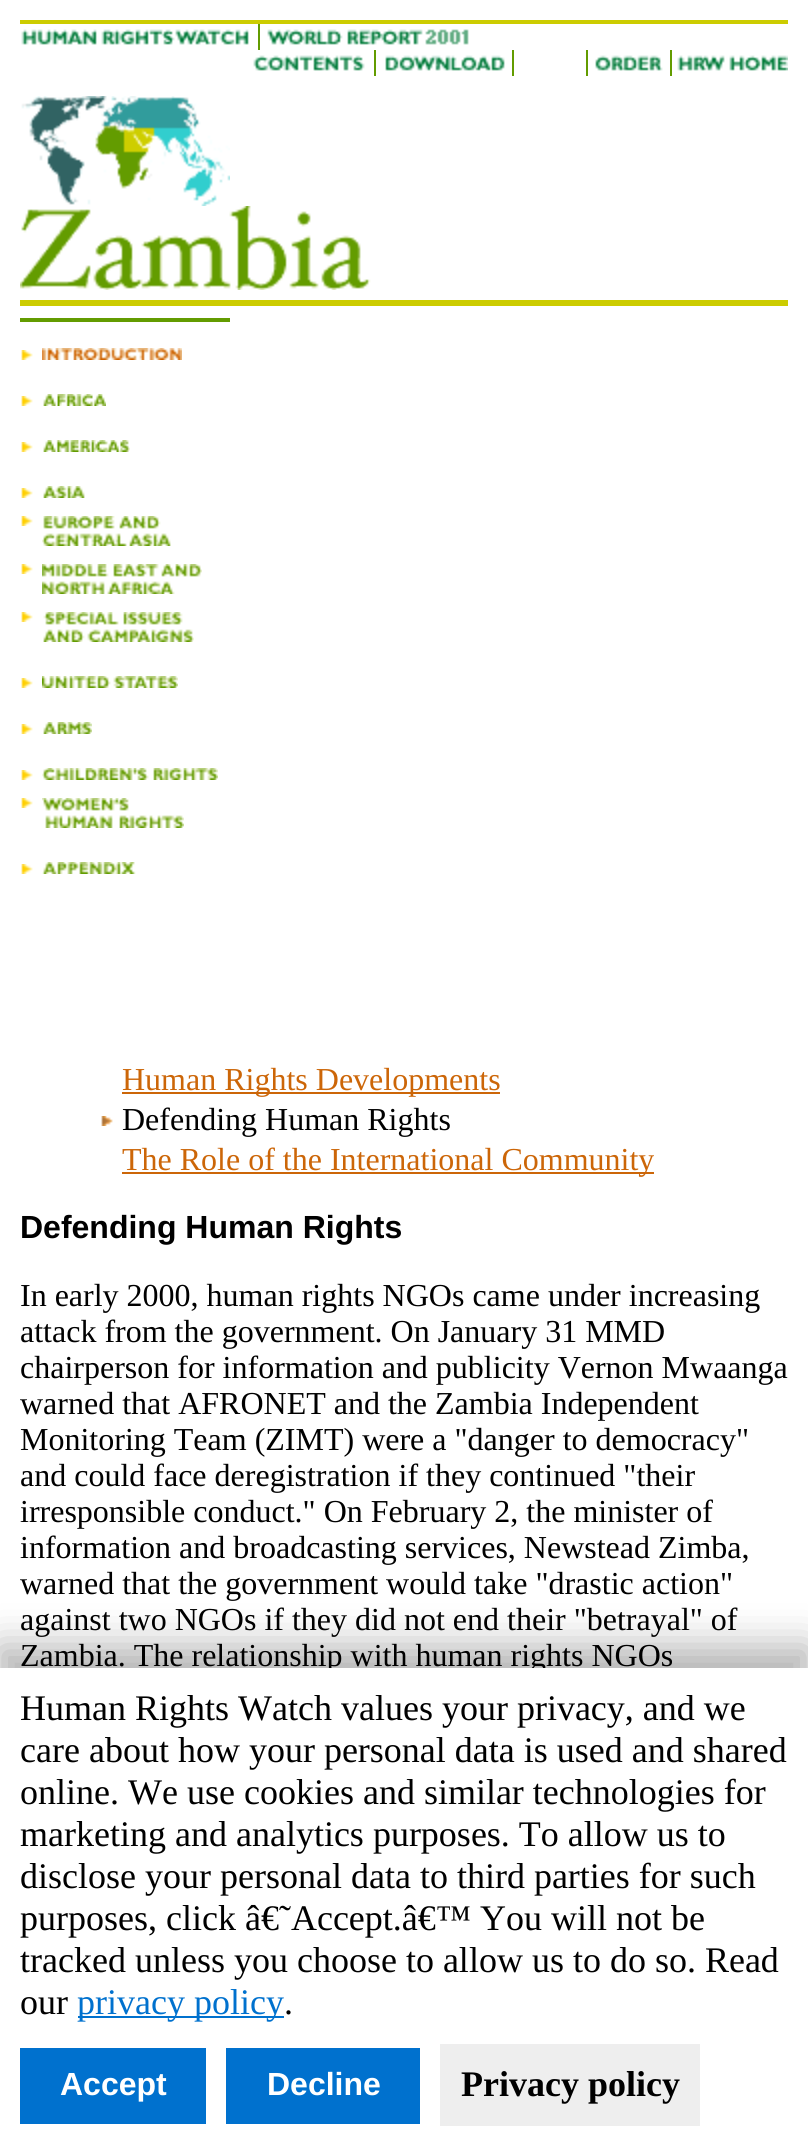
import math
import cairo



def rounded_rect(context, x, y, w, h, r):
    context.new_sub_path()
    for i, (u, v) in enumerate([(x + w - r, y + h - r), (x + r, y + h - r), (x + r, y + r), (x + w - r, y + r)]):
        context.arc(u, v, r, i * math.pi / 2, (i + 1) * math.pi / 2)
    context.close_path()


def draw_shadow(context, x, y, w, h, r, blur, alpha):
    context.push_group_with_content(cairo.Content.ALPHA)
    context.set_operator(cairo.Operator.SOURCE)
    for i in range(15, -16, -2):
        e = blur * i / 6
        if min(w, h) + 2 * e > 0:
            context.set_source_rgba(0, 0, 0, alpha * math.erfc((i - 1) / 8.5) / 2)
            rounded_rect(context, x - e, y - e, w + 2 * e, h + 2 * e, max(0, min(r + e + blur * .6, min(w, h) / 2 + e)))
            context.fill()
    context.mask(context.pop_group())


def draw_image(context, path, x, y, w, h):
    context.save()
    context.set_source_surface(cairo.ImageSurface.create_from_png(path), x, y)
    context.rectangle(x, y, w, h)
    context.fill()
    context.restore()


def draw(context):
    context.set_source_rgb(1, 1, 1)
    context.paint()
    context.set_source_rgb(204 / 255, 204 / 255, 0)
    context.rectangle(20, 20, 768, 4)
    context.fill()
    draw_image(context, "images/1.png", 21, 29, 228, 16)
    context.set_source_rgb(99 / 255, 156 / 255, 0)
    context.rectangle(258, 24, 2, 26)
    context.fill()
    draw_image(context, "images/2.png", 267, 29, 202, 16)
    draw_image(context, "images/3.png", 253, 55, 112, 16)
    context.rectangle(374, 50, 2, 26)
    context.fill()
    draw_image(context, "images/4.png", 385, 55, 120, 16)
    context.rectangle(512, 50, 2, 26)
    context.fill()
    context.rectangle(586, 50, 2, 26)
    context.fill()
    draw_image(context, "images/5.png", 595, 55, 68, 16)
    context.rectangle(670, 50, 2, 26)
    context.fill()
    draw_image(context, "images/6.png", 677, 55, 111, 16)
    draw_image(context, "images/7.png", 21, 96, 209, 110)
    draw_image(context, "images/8.png", 20, 206, 351, 84)
    context.set_source_rgb(204 / 255, 204 / 255, 0)
    context.rectangle(20, 300, 768, 6)
    context.fill()
    context.set_source_rgb(99 / 255, 156 / 255, 0)
    context.rectangle(20, 318, 210, 4)
    context.fill()
    draw_image(context, "images/9.png", 21, 350, 12, 10)
    draw_image(context, "images/10.png", 42, 348, 140, 12)
    draw_image(context, "images/9.png", 21, 396, 12, 10)
    draw_image(context, "images/11.png", 43, 394, 63, 12)
    draw_image(context, "images/9.png", 21, 442, 12, 10)
    draw_image(context, "images/12.png", 43, 440, 87, 12)
    draw_image(context, "images/9.png", 21, 488, 12, 10)
    draw_image(context, "images/13.png", 43, 486, 42, 12)
    draw_image(context, "images/9.png", 21, 516, 12, 10)
    draw_image(context, "images/14.png", 42, 516, 129, 30)
    draw_image(context, "images/9.png", 21, 564, 12, 10)
    draw_image(context, "images/15.png", 42, 564, 160, 30)
    draw_image(context, "images/9.png", 21, 612, 12, 10)
    draw_image(context, "images/16.png", 43, 612, 151, 30)
    draw_image(context, "images/9.png", 21, 678, 12, 10)
    draw_image(context, "images/17.png", 42, 676, 136, 12)
    draw_image(context, "images/9.png", 21, 724, 12, 10)
    draw_image(context, "images/18.png", 43, 722, 49, 12)
    draw_image(context, "images/9.png", 21, 770, 12, 10)
    draw_image(context, "images/19.png", 42, 768, 176, 12)
    draw_image(context, "images/9.png", 21, 798, 12, 10)
    draw_image(context, "images/20.png", 42, 798, 142, 30)
    draw_image(context, "images/9.png", 21, 864, 12, 10)
    draw_image(context, "images/21.png", 42, 862, 94, 12)
    context.set_source_rgb(204 / 255, 102 / 255, 8 / 255)
    context.rectangle(122, 1092, 378, 2)
    context.fill()
    draw_image(context, "images/22.png", 101, 1116, 12, 10)
    context.rectangle(122, 1172, 532, 2)
    context.fill()
    context.set_source_rgb(0, 0, 0)
    draw_shadow(context, -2, 1646, 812, 482, 0, 20, 0.3)
    context.select_font_face("Liberation Serif")
    context.set_font_size(32)
    context.set_source_rgb(204 / 255, 102 / 255, 8 / 255)
    context.move_to(122, 1090)
    context.show_text("Human Rights Developments")
    context.set_source_rgb(0, 0, 0)
    context.move_to(122, 1130)
    context.show_text("Defending Human Rights")
    context.set_source_rgb(204 / 255, 102 / 255, 8 / 255)
    context.move_to(122, 1170)
    context.show_text("The Role of the International Community")
    context.select_font_face("Liberation Sans", cairo.FontSlant.NORMAL, cairo.FontWeight.BOLD)
    context.set_source_rgb(0, 0, 0)
    context.move_to(20, 1238)
    context.show_text("Defending Human Rights")
    context.select_font_face("Liberation Serif")
    context.move_to(20, 1306)
    context.show_text("In early 2000, human rights NGOs came under increasing")
    context.move_to(20, 1342)
    context.show_text("attack from the government. On January 31 MMD")
    context.move_to(20, 1378)
    context.show_text("chairperson for information and publicity Vernon Mwaanga")
    context.move_to(20, 1414)
    context.show_text("warned that AFRONET and the Zambia Independent")
    context.move_to(20, 1450)
    context.show_text("Monitoring Team (ZIMT) were a \"danger to democracy\"")
    context.move_to(20, 1486)
    context.show_text("and could face deregistration if they continued \"their")
    context.move_to(20, 1522)
    context.show_text("irresponsible conduct.\" On February 2, the minister of")
    context.move_to(20, 1558)
    context.show_text("information and broadcasting services, Newstead Zimba,")
    context.move_to(20, 1594)
    context.show_text("warned that the government would take \"drastic action\"")
    context.move_to(20, 1630)
    context.show_text("against two NGOs if they did not end their \"betrayal\" of")
    context.move_to(20, 1666)
    context.show_text("Zambia. The relationship with human rights NGOs")
    context.set_source_rgb(1, 1, 1)
    context.rectangle(0, 1668, 808, 477)
    context.fill()
    context.set_font_size(36)
    context.set_source_rgb(0, 0, 0)
    context.move_to(20, 1720)
    context.show_text("Human Rights Watch values your privacy, and we")
    context.move_to(20, 1762)
    context.show_text("care about how your personal data is used and shared")
    context.move_to(20, 1804)
    context.show_text("online. We use cookies and similar technologies for")
    context.move_to(20, 1846)
    context.show_text("marketing and analytics purposes. To allow us to")
    context.move_to(20, 1888)
    context.show_text("disclose your personal data to third parties for such")
    context.move_to(20, 1930)
    context.show_text("purposes, click â€˜Accept.â€™ You will not be")
    context.move_to(20, 1972)
    context.show_text("tracked unless you choose to allow us to do so. Read")
    context.move_to(20, 2014)
    context.show_text("our")
    context.set_source_rgb(0, 113 / 255, 206 / 255)
    context.rectangle(78, 2016, 206, 2)
    context.fill()
    context.move_to(77, 2014)
    context.show_text("privacy policy")
    context.set_source_rgb(0, 0, 0)
    context.move_to(284, 2014)
    context.show_text(".")
    context.set_source_rgb(0, 113 / 255, 206 / 255)
    context.rectangle(20, 2048, 186, 76)
    context.fill()
    context.select_font_face("Liberation Sans", cairo.FontSlant.NORMAL, cairo.FontWeight.BOLD)
    context.set_font_size(32)
    context.set_source_rgb(1, 1, 1)
    context.move_to(60, 2095)
    context.show_text("Accept")
    context.set_source_rgb(0, 113 / 255, 206 / 255)
    context.rectangle(226, 2048, 194, 76)
    context.fill()
    context.set_source_rgb(1, 1, 1)
    context.move_to(267, 2095)
    context.show_text("Decline")
    context.set_source_rgb(238 / 255, 238 / 255, 238 / 255)
    context.rectangle(440, 2044, 260, 82)
    context.fill()
    context.select_font_face("Liberation Serif", cairo.FontSlant.NORMAL, cairo.FontWeight.BOLD)
    context.set_font_size(36)
    context.set_source_rgb(0, 0, 0)
    context.move_to(461, 2096)
    context.show_text("Privacy policy")


surface = cairo.ImageSurface(cairo.Format.RGB24, 808, 2145)
context = cairo.Context(surface)
options = cairo.FontOptions()
options.set_hint_metrics(cairo.HintMetrics.OFF)
options.set_hint_style(cairo.HintStyle.NONE)
context.set_font_options(options)
context.set_miter_limit(4)
draw(context)
surface.write_to_png("out.png")
